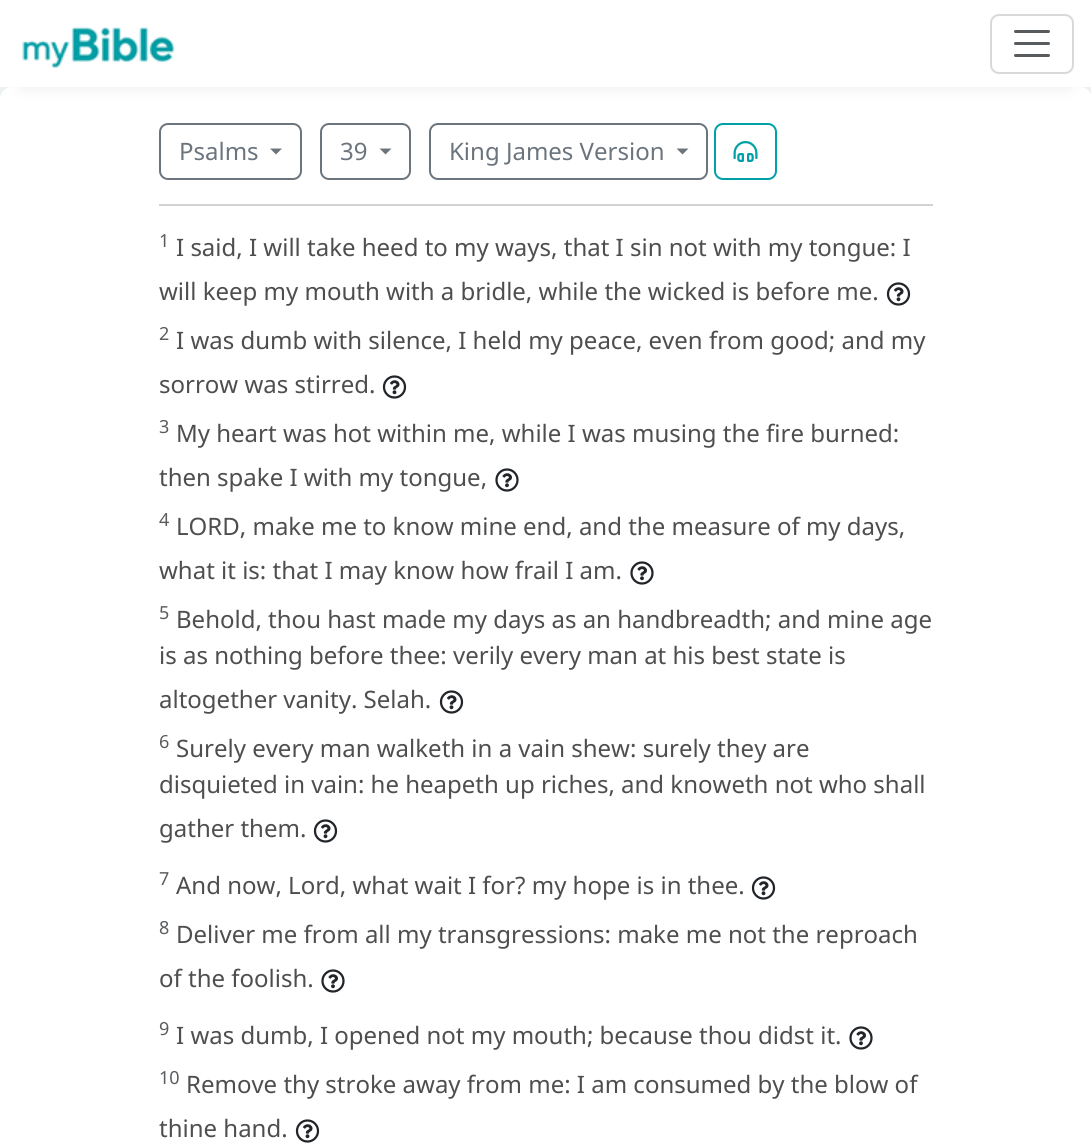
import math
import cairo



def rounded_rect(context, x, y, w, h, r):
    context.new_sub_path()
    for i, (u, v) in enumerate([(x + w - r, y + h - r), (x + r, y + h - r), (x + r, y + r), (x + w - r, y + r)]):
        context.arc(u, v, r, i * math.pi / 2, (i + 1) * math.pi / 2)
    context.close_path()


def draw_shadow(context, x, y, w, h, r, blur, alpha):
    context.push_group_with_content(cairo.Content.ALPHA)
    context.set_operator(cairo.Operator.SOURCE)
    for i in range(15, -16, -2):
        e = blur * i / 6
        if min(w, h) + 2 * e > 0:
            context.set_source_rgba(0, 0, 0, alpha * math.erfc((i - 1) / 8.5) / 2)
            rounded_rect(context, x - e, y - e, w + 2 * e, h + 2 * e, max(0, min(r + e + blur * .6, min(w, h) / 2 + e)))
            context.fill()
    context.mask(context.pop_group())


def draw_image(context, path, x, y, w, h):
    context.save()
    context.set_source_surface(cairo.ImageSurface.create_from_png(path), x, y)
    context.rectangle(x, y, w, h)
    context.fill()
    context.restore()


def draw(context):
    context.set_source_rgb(236 / 255, 241 / 255, 241 / 255)
    context.paint()
    context.set_source_rgb(1, 1, 1)
    rounded_rect(context, 0, 87, 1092, 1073, 12)
    context.fill()
    context.set_source_rgb(234 / 255, 234 / 255, 234 / 255)
    draw_shadow(context, 23, 45, 1047, 42, 0, 7.5, 1)
    context.set_source_rgb(1, 1, 1)
    context.rectangle(0, 0, 1091, 87)
    context.fill()
    draw_image(context, "images/1.png", 22, 26, 153, 42)
    rounded_rect(context, 991, 15, 82, 58, 8)
    context.set_source_rgb(217 / 255, 217 / 255, 217 / 255)
    context.stroke()
    context.new_path()
    context.move_to(1015.5, 31.5)
    context.line_to(1048.5, 31.5)
    context.move_to(1015.5, 43.5)
    context.line_to(1048.5, 43.5)
    context.move_to(1015.5, 55.5)
    context.line_to(1048.5, 55.5)
    context.set_source_rgb(89 / 255, 92 / 255, 95 / 255)
    context.set_line_width(3)
    context.set_line_cap(cairo.LineCap.ROUND)
    context.stroke()
    rounded_rect(context, 160, 124, 141, 55, 8)
    context.set_source_rgb(108 / 255, 117 / 255, 125 / 255)
    context.set_line_width(2)
    context.set_line_cap(cairo.LineCap.BUTT)
    context.stroke()
    context.new_path()
    context.move_to(270, 148.5)
    context.line_to(282, 148.5)
    context.line_to(276, 154.5)
    context.close_path()
    context.fill()
    rounded_rect(context, 321, 124, 89, 55, 8)
    context.stroke()
    context.new_path()
    context.move_to(379.5, 148.5)
    context.line_to(391.5, 148.5)
    context.line_to(385.5, 154.5)
    context.close_path()
    context.fill()
    rounded_rect(context, 430, 124, 277, 55, 8)
    context.stroke()
    context.new_path()
    context.move_to(676.5, 148.5)
    context.line_to(688.5, 148.5)
    context.line_to(682.5, 154.5)
    context.close_path()
    context.fill()
    rounded_rect(context, 715, 124, 61, 55, 8)
    context.set_source_rgb(0, 160 / 255, 167 / 255)
    context.stroke()
    draw_image(context, "images/2.png", 733, 141, 25, 21)
    context.set_source_rgb(211 / 255, 211 / 255, 211 / 255)
    context.rectangle(159, 204, 774, 2)
    context.fill()
    draw_image(context, "images/3.png", 886, 282, 25, 24)
    draw_image(context, "images/3.png", 382, 375, 25, 24)
    draw_image(context, "images/4.png", 495, 468, 24, 24)
    draw_image(context, "images/4.png", 630, 561, 24, 24)
    draw_image(context, "images/3.png", 439, 690, 25, 24)
    draw_image(context, "images/3.png", 313, 819, 25, 24)
    draw_image(context, "images/3.png", 751, 876, 25, 24)
    draw_image(context, "images/4.png", 321, 969, 24, 24)
    draw_image(context, "images/4.png", 849, 1026, 24, 24)
    draw_image(context, "images/3.png", 295, 1119, 25, 24)
    context.select_font_face("Noto Sans")
    context.set_font_size(24)
    context.set_source_rgb(108 / 255, 117 / 255, 125 / 255)
    context.move_to(179, 160)
    context.show_text("Psalms")
    context.move_to(340, 160)
    context.show_text("39")
    context.move_to(449, 160)
    context.show_text("King James Version")
    context.set_font_size(18)
    context.set_source_rgb(89 / 255, 92 / 255, 95 / 255)
    context.move_to(159, 247)
    context.show_text("1")
    context.set_font_size(24)
    context.set_source_rgb(79 / 255, 78 / 255, 78 / 255)
    context.move_to(176, 256)
    context.show_text("I said, I will take heed to my ways, that I sin not with my tongue: I")
    context.move_to(159, 300)
    context.show_text("will keep my mouth with a bridle, while the wicked is before me.")
    context.set_font_size(18)
    context.set_source_rgb(89 / 255, 92 / 255, 95 / 255)
    context.move_to(159, 340)
    context.show_text("2")
    context.set_font_size(24)
    context.set_source_rgb(79 / 255, 78 / 255, 78 / 255)
    context.move_to(176, 349)
    context.show_text("I was dumb with silence, I held my peace, even from good; and my")
    context.move_to(159, 393)
    context.show_text("sorrow was stirred.")
    context.set_font_size(18)
    context.set_source_rgb(89 / 255, 92 / 255, 95 / 255)
    context.move_to(159, 433)
    context.show_text("3")
    context.set_font_size(24)
    context.set_source_rgb(79 / 255, 78 / 255, 78 / 255)
    context.move_to(176, 442)
    context.show_text("My heart was hot within me, while I was musing the fire burned:")
    context.move_to(159, 486)
    context.show_text("then spake I with my tongue,")
    context.set_font_size(18)
    context.set_source_rgb(89 / 255, 92 / 255, 95 / 255)
    context.move_to(159, 526)
    context.show_text("4")
    context.set_font_size(24)
    context.set_source_rgb(79 / 255, 78 / 255, 78 / 255)
    context.move_to(176, 535)
    context.show_text("LORD, make me to know mine end, and the measure of my days,")
    context.move_to(159, 579)
    context.show_text("what it is: that I may know how frail I am.")
    context.set_font_size(18)
    context.set_source_rgb(89 / 255, 92 / 255, 95 / 255)
    context.move_to(159, 619)
    context.show_text("5")
    context.set_font_size(24)
    context.set_source_rgb(79 / 255, 78 / 255, 78 / 255)
    context.move_to(176, 628)
    context.show_text("Behold, thou hast made my days as an handbreadth; and mine age")
    context.move_to(159, 664)
    context.show_text("is as nothing before thee: verily every man at his best state is")
    context.move_to(159, 708)
    context.show_text("altogether vanity. Selah.")
    context.set_font_size(18)
    context.set_source_rgb(89 / 255, 92 / 255, 95 / 255)
    context.move_to(159, 748)
    context.show_text("6")
    context.set_font_size(24)
    context.set_source_rgb(79 / 255, 78 / 255, 78 / 255)
    context.move_to(176, 757)
    context.show_text("Surely every man walketh in a vain shew: surely they are")
    context.move_to(159, 793)
    context.show_text("disquieted in vain: he heapeth up riches, and knoweth not who shall")
    context.move_to(159, 837)
    context.show_text("gather them.")
    context.set_font_size(18)
    context.set_source_rgb(89 / 255, 92 / 255, 95 / 255)
    context.move_to(159, 885)
    context.show_text("7")
    context.set_font_size(24)
    context.set_source_rgb(79 / 255, 78 / 255, 78 / 255)
    context.move_to(176, 894)
    context.show_text("And now, Lord, what wait I for? my hope is in thee.")
    context.set_font_size(18)
    context.set_source_rgb(89 / 255, 92 / 255, 95 / 255)
    context.move_to(159, 934)
    context.show_text("8")
    context.set_font_size(24)
    context.set_source_rgb(79 / 255, 78 / 255, 78 / 255)
    context.move_to(176, 943)
    context.show_text("Deliver me from all my transgressions: make me not the reproach")
    context.move_to(159, 987)
    context.show_text("of the foolish.")
    context.set_font_size(18)
    context.set_source_rgb(89 / 255, 92 / 255, 95 / 255)
    context.move_to(159, 1035)
    context.show_text("9")
    context.set_font_size(24)
    context.set_source_rgb(79 / 255, 78 / 255, 78 / 255)
    context.move_to(176, 1044)
    context.show_text("I was dumb, I opened not my mouth; because thou didst it.")
    context.set_font_size(18)
    context.set_source_rgb(89 / 255, 92 / 255, 95 / 255)
    context.move_to(159, 1084)
    context.show_text("10")
    context.set_font_size(24)
    context.set_source_rgb(79 / 255, 78 / 255, 78 / 255)
    context.move_to(186, 1093)
    context.show_text("Remove thy stroke away from me: I am consumed by the blow of")
    context.move_to(159, 1137)
    context.show_text("thine hand.")


surface = cairo.ImageSurface(cairo.Format.RGB24, 1091, 1148)
context = cairo.Context(surface)
options = cairo.FontOptions()
options.set_hint_metrics(cairo.HintMetrics.OFF)
options.set_hint_style(cairo.HintStyle.NONE)
context.set_font_options(options)
context.set_miter_limit(4)
draw(context)
surface.write_to_png("out.png")
